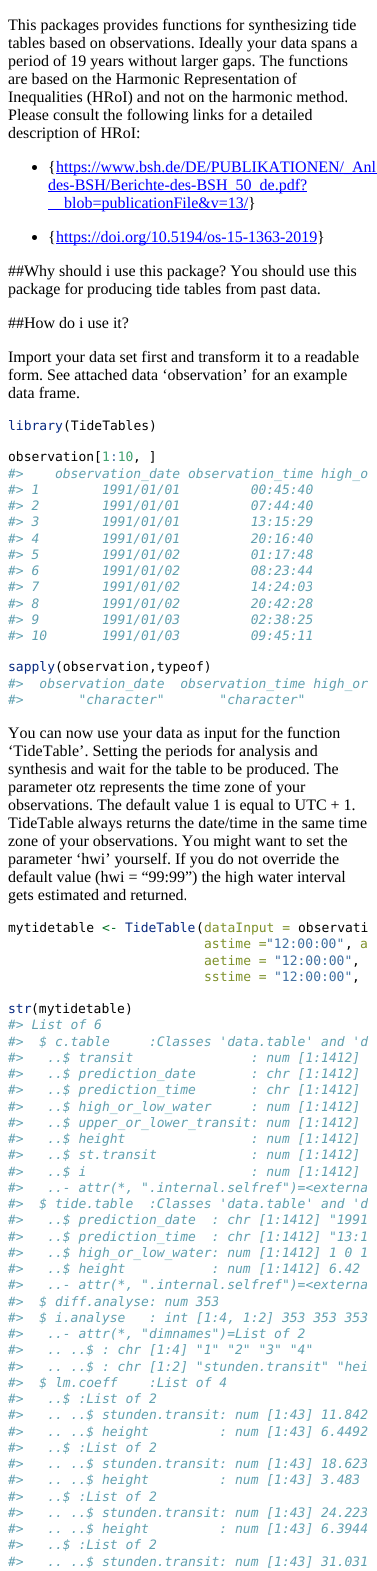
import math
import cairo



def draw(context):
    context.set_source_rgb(1, 1, 1)
    context.paint()
    context.set_source_rgb(0, 0, 0)
    context.arc(34.5, 167.5, 2.5, 0, 2 * math.pi)
    context.fill()
    context.set_source_rgb(0, 0, 1)
    context.rectangle(56, 173, 321, 1)
    context.fill()
    context.rectangle(48, 191, 259, 1)
    context.fill()
    context.rectangle(48, 209, 200, 1)
    context.fill()
    context.set_source_rgb(0, 0, 0)
    context.arc(34.5, 237.5, 2.5, 0, 2 * math.pi)
    context.fill()
    context.set_source_rgb(0, 0, 1)
    context.rectangle(56, 243, 261, 1)
    context.fill()
    context.select_font_face("Liberation Serif")
    context.set_font_size(16)
    context.set_source_rgb(0, 0, 0)
    context.move_to(8, 30)
    context.show_text("This packages provides functions for synthesizing tide")
    context.move_to(8, 48)
    context.show_text("tables based on observations. Ideally your data spans a")
    context.move_to(8, 66)
    context.show_text("period of 19 years without larger gaps. The functions")
    context.move_to(8, 84)
    context.show_text("are based on the Harmonic Representation of")
    context.move_to(8, 102)
    context.show_text("Inequalities (HRoI) and not on the harmonic method.")
    context.move_to(8, 120)
    context.show_text("Please consult the following links for a detailed")
    context.move_to(8, 138)
    context.show_text("description of HRoI:")
    context.move_to(48, 172)
    context.show_text("{")
    context.set_source_rgb(0, 0, 1)
    context.move_to(56, 172)
    context.show_text("https://www.bsh.de/DE/PUBLIKATIONEN/_Anl")
    context.move_to(48, 190)
    context.show_text("des-BSH/Berichte-des-BSH_50_de.pdf?")
    context.move_to(64, 208)
    context.show_text("blob=publicationFile&v=13/")
    context.set_source_rgb(0, 0, 0)
    context.move_to(248, 208)
    context.show_text("}")
    context.move_to(48, 242)
    context.show_text("{")
    context.set_source_rgb(0, 0, 1)
    context.move_to(56, 242)
    context.show_text("https://doi.org/10.5194/os-15-1363-2019")
    context.set_source_rgb(0, 0, 0)
    context.move_to(317, 242)
    context.show_text("}")
    context.move_to(8, 276)
    context.show_text("##Why should i use this package? You should use this")
    context.move_to(8, 294)
    context.show_text("package for producing tide tables from past data.")
    context.move_to(8, 328)
    context.show_text("##How do i use it?")
    context.move_to(8, 362)
    context.show_text("Import your data set first and transform it to a readable")
    context.move_to(8, 380)
    context.show_text("form. See attached data ‘observation’ for an example")
    context.move_to(8, 398)
    context.show_text("data frame.")
    context.select_font_face("DejaVu Sans Mono")
    context.set_font_size(13)
    context.set_source_rgb(6 / 255, 40 / 255, 126 / 255)
    context.move_to(8, 430)
    context.show_text("library")
    context.set_source_rgb(0, 0, 0)
    context.move_to(63, 430)
    context.show_text("(TideTables)")
    context.move_to(8, 461)
    context.show_text("observation[")
    context.set_source_rgb(64 / 255, 160 / 255, 112 / 255)
    context.move_to(102, 461)
    context.show_text("1 10")
    context.set_source_rgb(0, 0, 0)
    context.move_to(133, 461)
    context.show_text(", ]")
    context.set_source_rgb(64 / 255, 112 / 255, 160 / 255)
    context.move_to(110, 461)
    context.show_text(":")
    context.select_font_face("DejaVu Sans Mono", cairo.FontSlant.ITALIC)
    context.set_source_rgb(96 / 255, 160 / 255, 176 / 255)
    context.move_to(8, 478)
    context.show_text("#>    observation_date observation_time high_o")
    context.move_to(8, 494)
    context.show_text("#> 1        1991/01/01         00:45:40")
    context.move_to(8, 510)
    context.show_text("#> 2        1991/01/01         07:44:40")
    context.move_to(8, 526)
    context.show_text("#> 3        1991/01/01         13:15:29")
    context.move_to(8, 543)
    context.show_text("#> 4        1991/01/01         20:16:40")
    context.move_to(8, 559)
    context.show_text("#> 5        1991/01/02         01:17:48")
    context.move_to(8, 575)
    context.show_text("#> 6        1991/01/02         08:23:44")
    context.move_to(8, 591)
    context.show_text("#> 7        1991/01/02         14:24:03")
    context.move_to(8, 608)
    context.show_text("#> 8        1991/01/02         20:42:28")
    context.move_to(8, 624)
    context.show_text("#> 9        1991/01/03         02:38:25")
    context.move_to(8, 640)
    context.show_text("#> 10       1991/01/03         09:45:11")
    context.select_font_face("DejaVu Sans Mono")
    context.set_source_rgb(6 / 255, 40 / 255, 126 / 255)
    context.move_to(8, 671)
    context.show_text("sapply")
    context.set_source_rgb(0, 0, 0)
    context.move_to(55, 671)
    context.show_text("(observation,typeof)")
    context.select_font_face("DejaVu Sans Mono", cairo.FontSlant.ITALIC)
    context.set_source_rgb(96 / 255, 160 / 255, 176 / 255)
    context.move_to(8, 688)
    context.show_text("#>  observation_date  observation_time high_or")
    context.move_to(8, 704)
    context.show_text("#>       \"character\"       \"character\"")
    context.select_font_face("Liberation Serif")
    context.set_font_size(16)
    context.set_source_rgb(0, 0, 0)
    context.move_to(8, 738)
    context.show_text("You can now use your data as input for the function")
    context.move_to(8, 756)
    context.show_text("‘TideTable’. Setting the periods for analysis and")
    context.move_to(8, 774)
    context.show_text("synthesis and wait for the table to be produced. The")
    context.move_to(8, 792)
    context.show_text("parameter otz represents the time zone of your")
    context.move_to(8, 810)
    context.show_text("observations. The default value 1 is equal to UTC + 1.")
    context.move_to(8, 828)
    context.show_text("TideTable always returns the date/time in the same time")
    context.move_to(8, 846)
    context.show_text("zone of your observations. You might want to set the")
    context.move_to(8, 864)
    context.show_text("parameter ‘hwi’ yourself. If you do not override the")
    context.move_to(8, 882)
    context.show_text("default value (hwi = “99:99”) the high water interval")
    context.move_to(8, 900)
    context.show_text("gets estimated and returned.")
    context.select_font_face("DejaVu Sans Mono")
    context.set_font_size(13)
    context.move_to(8, 932)
    context.show_text("mytidetable")
    context.set_source_rgb(0, 112 / 255, 32 / 255)
    context.move_to(102, 932)
    context.show_text("<-")
    context.set_source_rgb(6 / 255, 40 / 255, 126 / 255)
    context.move_to(125, 932)
    context.show_text("TideTable")
    context.set_source_rgb(0, 0, 0)
    context.move_to(196, 932)
    context.show_text("(")
    context.set_source_rgb(125 / 255, 144 / 255, 41 / 255)
    context.move_to(204, 932)
    context.show_text("dataInput =")
    context.set_source_rgb(0, 0, 0)
    context.move_to(298, 932)
    context.show_text("observati")
    context.set_source_rgb(125 / 255, 144 / 255, 41 / 255)
    context.move_to(204, 948)
    context.show_text("astime =")
    context.set_source_rgb(64 / 255, 112 / 255, 160 / 255)
    context.move_to(266, 948)
    context.show_text("\"12:00:00\"")
    context.set_source_rgb(0, 0, 0)
    context.move_to(345, 948)
    context.show_text(",")
    context.set_source_rgb(125 / 255, 144 / 255, 41 / 255)
    context.move_to(360, 948)
    context.show_text("a")
    context.move_to(204, 965)
    context.show_text("aetime =")
    context.set_source_rgb(64 / 255, 112 / 255, 160 / 255)
    context.move_to(274, 965)
    context.show_text("\"12:00:00\"")
    context.set_source_rgb(0, 0, 0)
    context.move_to(352, 965)
    context.show_text(",")
    context.set_source_rgb(125 / 255, 144 / 255, 41 / 255)
    context.move_to(204, 981)
    context.show_text("sstime =")
    context.set_source_rgb(64 / 255, 112 / 255, 160 / 255)
    context.move_to(274, 981)
    context.show_text("\"12:00:00\"")
    context.set_source_rgb(0, 0, 0)
    context.move_to(352, 981)
    context.show_text(",")
    context.set_source_rgb(6 / 255, 40 / 255, 126 / 255)
    context.move_to(8, 1013)
    context.show_text("str")
    context.set_source_rgb(0, 0, 0)
    context.move_to(31, 1013)
    context.show_text("(mytidetable)")
    context.select_font_face("DejaVu Sans Mono", cairo.FontSlant.ITALIC)
    context.set_source_rgb(96 / 255, 160 / 255, 176 / 255)
    context.move_to(8, 1029)
    context.show_text("#> List of 6")
    context.move_to(8, 1046)
    context.show_text("#>  $ c.table     :Classes 'data.table' and 'd")
    context.move_to(8, 1062)
    context.show_text("#>   ..$ transit               : num [1:1412]")
    context.move_to(8, 1078)
    context.show_text("#>   ..$ prediction_date       : chr [1:1412]")
    context.move_to(8, 1094)
    context.show_text("#>   ..$ prediction_time       : chr [1:1412]")
    context.move_to(8, 1111)
    context.show_text("#>   ..$ high_or_low_water     : num [1:1412]")
    context.move_to(8, 1127)
    context.show_text("#>   ..$ upper_or_lower_transit: num [1:1412]")
    context.move_to(8, 1143)
    context.show_text("#>   ..$ height                : num [1:1412]")
    context.move_to(8, 1159)
    context.show_text("#>   ..$ st.transit            : num [1:1412]")
    context.move_to(8, 1176)
    context.show_text("#>   ..$ i                     : num [1:1412]")
    context.move_to(8, 1192)
    context.show_text("#>   ..- attr(*, \".internal.selfref\")=<externa")
    context.move_to(8, 1208)
    context.show_text("#>  $ tide.table  :Classes 'data.table' and 'd")
    context.move_to(8, 1224)
    context.show_text("#>   ..$ prediction_date  : chr [1:1412] \"1991")
    context.move_to(8, 1241)
    context.show_text("#>   ..$ prediction_time  : chr [1:1412] \"13:1")
    context.move_to(8, 1257)
    context.show_text("#>   ..$ high_or_low_water: num [1:1412] 1 0 1")
    context.move_to(8, 1273)
    context.show_text("#>   ..$ height           : num [1:1412] 6.42")
    context.move_to(8, 1289)
    context.show_text("#>   ..- attr(*, \".internal.selfref\")=<externa")
    context.move_to(8, 1306)
    context.show_text("#>  $ diff.analyse: num 353")
    context.move_to(8, 1322)
    context.show_text("#>  $ i.analyse   : int [1:4, 1:2] 353 353 353")
    context.move_to(8, 1338)
    context.show_text("#>   ..- attr(*, \"dimnames\")=List of 2")
    context.move_to(8, 1354)
    context.show_text("#>   .. ..$ : chr [1:4] \"1\" \"2\" \"3\" \"4\"")
    context.move_to(8, 1371)
    context.show_text("#>   .. ..$ : chr [1:2] \"stunden.transit\" \"hei")
    context.move_to(8, 1387)
    context.show_text("#>  $ lm.coeff    :List of 4")
    context.move_to(8, 1403)
    context.show_text("#>   ..$ :List of 2")
    context.move_to(8, 1419)
    context.show_text("#>   .. ..$ stunden.transit: num [1:43] 11.842")
    context.move_to(8, 1436)
    context.show_text("#>   .. ..$ height         : num [1:43] 6.4492")
    context.move_to(8, 1452)
    context.show_text("#>   ..$ :List of 2")
    context.move_to(8, 1468)
    context.show_text("#>   .. ..$ stunden.transit: num [1:43] 18.623")
    context.move_to(8, 1484)
    context.show_text("#>   .. ..$ height         : num [1:43] 3.483")
    context.move_to(8, 1501)
    context.show_text("#>   ..$ :List of 2")
    context.move_to(8, 1517)
    context.show_text("#>   .. ..$ stunden.transit: num [1:43] 24.223")
    context.move_to(8, 1533)
    context.show_text("#>   .. ..$ height         : num [1:43] 6.3944")
    context.move_to(8, 1549)
    context.show_text("#>   ..$ :List of 2")
    context.move_to(8, 1566)
    context.show_text("#>   .. ..$ stunden.transit: num [1:43] 31.031")


surface = cairo.ImageSurface(cairo.Format.RGB24, 377, 1571)
context = cairo.Context(surface)
options = cairo.FontOptions()
options.set_hint_metrics(cairo.HintMetrics.OFF)
options.set_hint_style(cairo.HintStyle.NONE)
context.set_font_options(options)
context.set_miter_limit(4)
draw(context)
surface.write_to_png("out.png")
